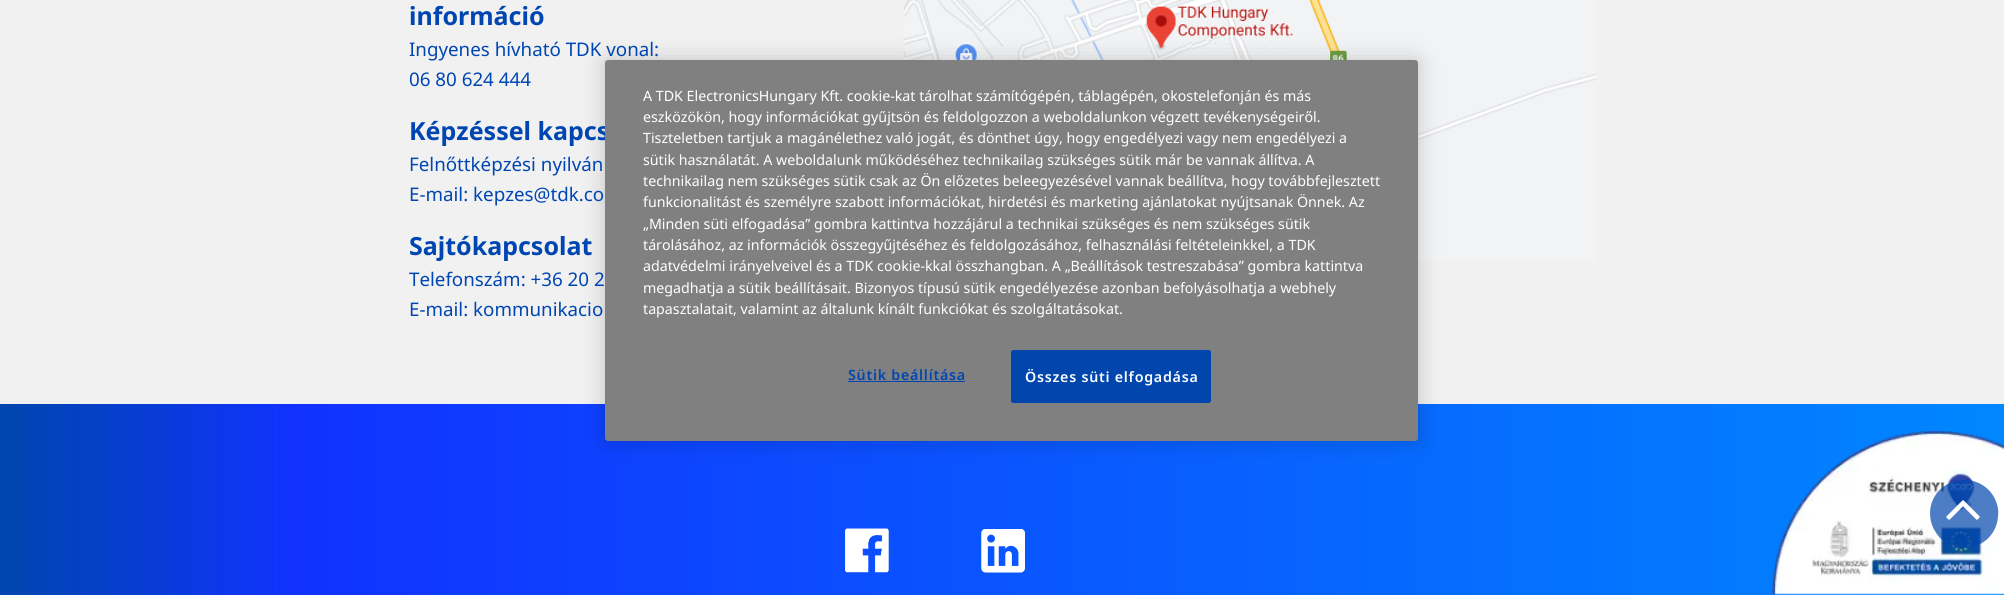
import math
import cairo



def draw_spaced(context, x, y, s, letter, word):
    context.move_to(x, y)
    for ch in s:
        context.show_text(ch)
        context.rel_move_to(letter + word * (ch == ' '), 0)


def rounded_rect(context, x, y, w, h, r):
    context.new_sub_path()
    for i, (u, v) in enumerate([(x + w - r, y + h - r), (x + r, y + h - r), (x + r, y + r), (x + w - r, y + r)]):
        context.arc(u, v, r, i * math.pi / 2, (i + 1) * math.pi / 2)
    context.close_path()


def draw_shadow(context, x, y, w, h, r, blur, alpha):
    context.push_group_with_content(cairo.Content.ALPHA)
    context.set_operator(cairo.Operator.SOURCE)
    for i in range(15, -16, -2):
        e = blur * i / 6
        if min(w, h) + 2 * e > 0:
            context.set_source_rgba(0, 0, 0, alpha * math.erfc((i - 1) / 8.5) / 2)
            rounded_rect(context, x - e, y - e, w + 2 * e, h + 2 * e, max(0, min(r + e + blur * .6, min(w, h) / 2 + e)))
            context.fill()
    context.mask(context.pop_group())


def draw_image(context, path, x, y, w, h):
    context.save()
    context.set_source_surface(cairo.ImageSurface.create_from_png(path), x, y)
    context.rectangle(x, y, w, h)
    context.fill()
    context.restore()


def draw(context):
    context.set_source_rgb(241 / 255, 241 / 255, 241 / 255)
    context.paint()
    draw_image(context, "images/1.png", 903, 0, 694, 261)
    gradient = cairo.LinearGradient(0, 554, 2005, 554)
    gradient.add_color_stop_rgba(0, 0, 70 / 255, 173 / 255, 1)
    gradient.add_color_stop_rgba(0.15, 17 / 255, 50 / 255, 1, 1)
    gradient.add_color_stop_rgba(1, 0, 135 / 255, 1, 1)
    context.set_source(gradient)
    context.rectangle(0, 404, 2004, 191)
    context.fill()
    context.set_source_rgb(0, 0, 0)
    draw_shadow(context, 605, 60, 813, 381, 3, 11, 0.2)
    draw_image(context, "images/2.png", 845, 528, 44, 45)
    draw_image(context, "images/3.png", 981, 529, 44, 44)
    draw_image(context, "images/4.png", 1772, 431, 232, 164)
    context.set_source_rgba(1 / 255, 70 / 255, 173 / 255, 0.7)
    context.new_path()
    context.move_to(1994, 497)
    context.curve_to(1997, 503, 1999, 509, 1998, 516)
    context.curve_to(1996, 550, 1951, 560, 1935, 531)
    context.curve_to(1931, 525, 1930, 518, 1930, 512)
    context.curve_to(1932, 478, 1977, 468, 1994, 497)
    context.close_path()
    context.fill()
    draw_image(context, "images/5.png", 1946, 500, 34, 20)
    context.select_font_face("Noto Sans", cairo.FontSlant.NORMAL, cairo.FontWeight.BOLD)
    context.set_font_size(25)
    context.set_source_rgb(0, 70 / 255, 178 / 255)
    context.move_to(409, 25)
    context.show_text("információ")
    context.select_font_face("Noto Sans")
    context.set_font_size(18.75)
    context.move_to(409, 56)
    context.show_text("Ingyenes hívható TDK vonal:")
    context.move_to(409, 86)
    context.show_text("06 80 624 444")
    context.select_font_face("Noto Sans", cairo.FontSlant.NORMAL, cairo.FontWeight.BOLD)
    context.set_font_size(25)
    context.move_to(409, 140)
    context.show_text("Képzéssel kapcs")
    context.select_font_face("Noto Sans")
    context.set_font_size(18.75)
    context.move_to(409, 171)
    context.show_text("Felnőttképzési nyilván")
    context.move_to(409, 201)
    context.show_text("E-mail: kepzes@tdk.co")
    context.select_font_face("Noto Sans", cairo.FontSlant.NORMAL, cairo.FontWeight.BOLD)
    context.set_font_size(25)
    context.move_to(409, 255)
    context.show_text("Sajtókapcsolat")
    context.select_font_face("Noto Sans")
    context.set_font_size(18.75)
    context.move_to(409, 286)
    context.show_text("Telefonszám: +36 20 2")
    context.move_to(409, 316)
    context.show_text("E-mail: kommunikacio")
    context.set_source_rgb(128 / 255, 128 / 255, 128 / 255)
    rounded_rect(context, 605, 60, 813, 381, 3)
    context.fill()
    context.set_font_size(14.23)
    context.set_source_rgb(1, 1, 1)
    context.move_to(643, 101)
    context.show_text("A TDK ElectronicsHungary Kft. cookie-kat tárolhat számítógépén, táblagépén, okostelefonján és más")
    context.move_to(643, 122)
    context.show_text("eszközökön, hogy információkat gyűjtsön és feldolgozzon a weboldalunkon végzett tevékenységeiről.")
    context.move_to(643, 143)
    context.show_text("Tiszteletben tartjuk a magánélethez való jogát, és dönthet úgy, hogy engedélyezi vagy nem engedélyezi a")
    context.move_to(643, 165)
    context.show_text("sütik használatát. A weboldalunk működéséhez technikailag szükséges sütik már be vannak állítva. A")
    context.move_to(643, 186)
    context.show_text("technikailag nem szükséges sütik csak az Ön előzetes beleegyezésével vannak beállítva, hogy továbbfejlesztett")
    context.move_to(643, 207)
    context.show_text("funkcionalitást és személyre szabott információkat, hirdetési és marketing ajánlatokat nyújtsanak Önnek. Az")
    context.move_to(643, 229)
    context.show_text("„Minden süti elfogadása” gombra kattintva hozzájárul a technikai szükséges és nem szükséges sütik")
    context.move_to(643, 250)
    context.show_text("tárolásához, az információk összegyűjtéséhez és feldolgozásához, felhasználási feltételeinkkel, a TDK")
    context.move_to(643, 271)
    context.show_text("adatvédelmi irányelveivel és a TDK cookie-kkal összhangban. A „Beállítások testreszabása” gombra kattintva")
    context.move_to(643, 293)
    context.show_text("megadhatja a sütik beállításait. Bizonyos típusú sütik engedélyezése azonban befolyásolhatja a webhely")
    context.move_to(643, 314)
    context.show_text("tapasztalatait, valamint az általunk kínált funkciókat és szolgáltatásokat.")
    context.select_font_face("Noto Sans SemiBold")
    context.set_source_rgb(0, 70 / 255, 178 / 255)
    draw_spaced(context, 848, 380, "Sütik beállítása", 0.75, 0)
    context.set_source_rgb(0, 70 / 255, 173 / 255)
    context.rectangle(848, 381, 117, 1)
    context.fill()
    rounded_rect(context, 1011.5, 350.5, 199, 52, 2)
    context.fill_preserve()
    context.set_line_width(1)
    context.stroke()
    context.set_source_rgb(1, 1, 1)
    draw_spaced(context, 1025, 382, "Összes süti elfogadása", 0.75, 0)


surface = cairo.ImageSurface(cairo.Format.RGB24, 2004, 595)
context = cairo.Context(surface)
options = cairo.FontOptions()
options.set_hint_metrics(cairo.HintMetrics.OFF)
options.set_hint_style(cairo.HintStyle.NONE)
context.set_font_options(options)
context.set_miter_limit(4)
draw(context)
surface.write_to_png("out.png")
